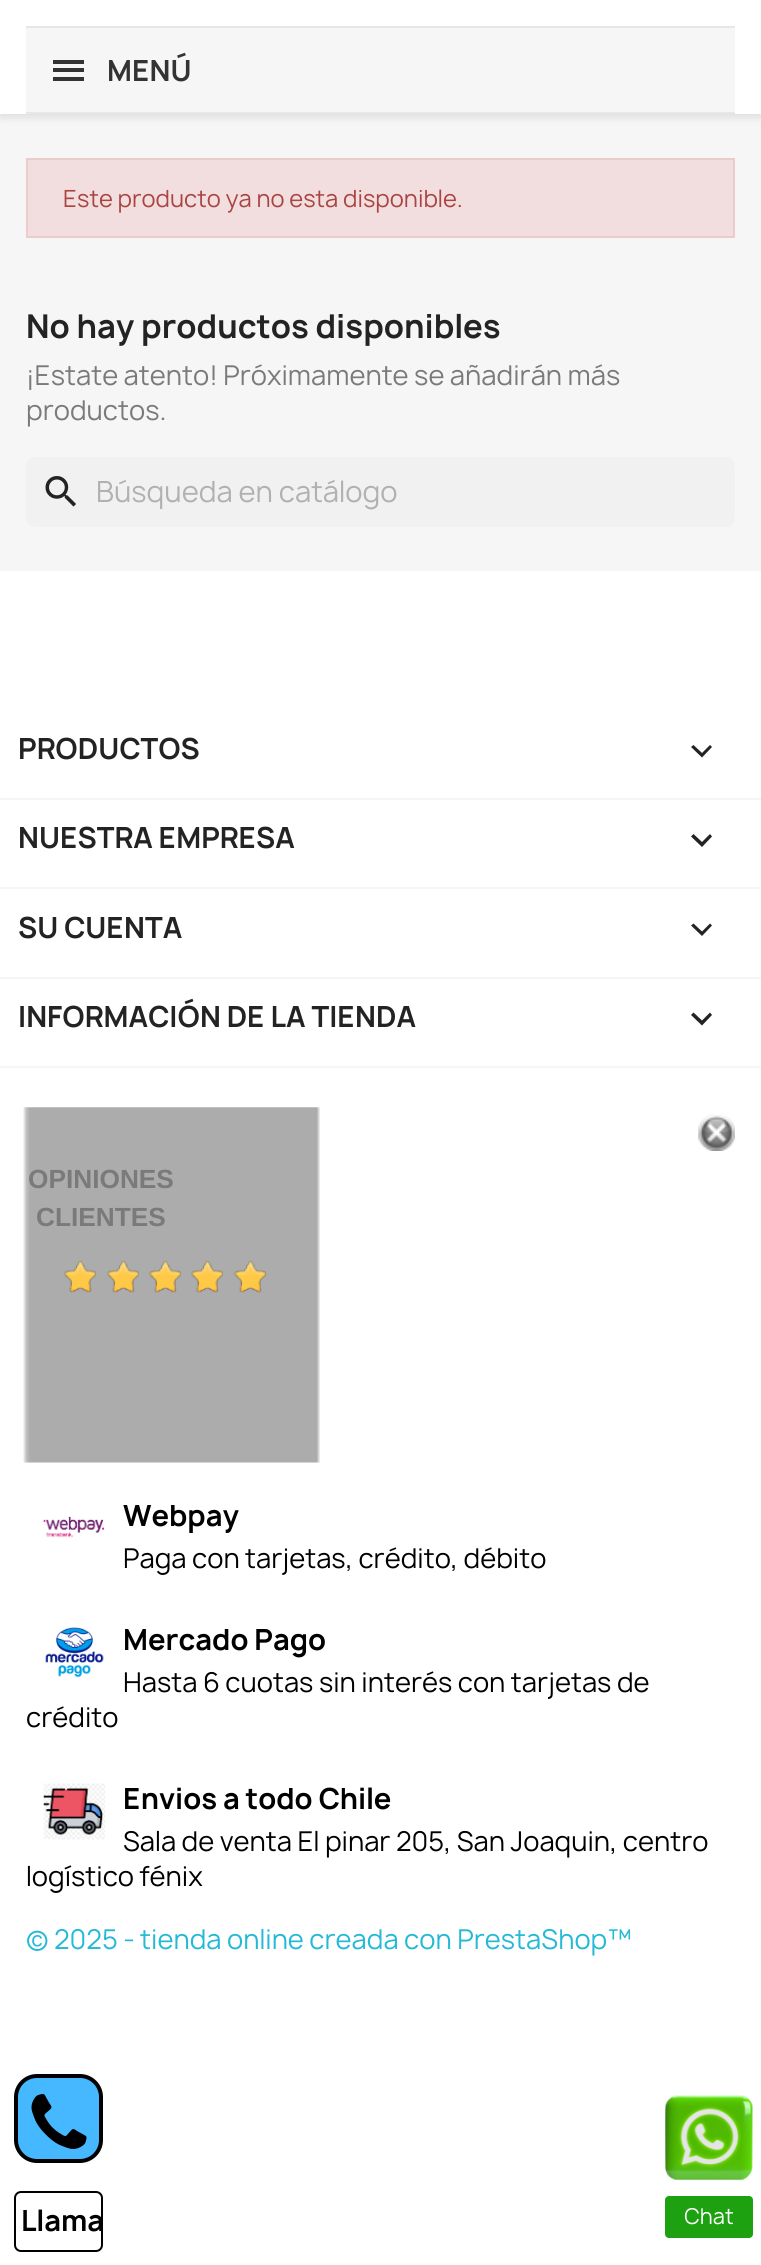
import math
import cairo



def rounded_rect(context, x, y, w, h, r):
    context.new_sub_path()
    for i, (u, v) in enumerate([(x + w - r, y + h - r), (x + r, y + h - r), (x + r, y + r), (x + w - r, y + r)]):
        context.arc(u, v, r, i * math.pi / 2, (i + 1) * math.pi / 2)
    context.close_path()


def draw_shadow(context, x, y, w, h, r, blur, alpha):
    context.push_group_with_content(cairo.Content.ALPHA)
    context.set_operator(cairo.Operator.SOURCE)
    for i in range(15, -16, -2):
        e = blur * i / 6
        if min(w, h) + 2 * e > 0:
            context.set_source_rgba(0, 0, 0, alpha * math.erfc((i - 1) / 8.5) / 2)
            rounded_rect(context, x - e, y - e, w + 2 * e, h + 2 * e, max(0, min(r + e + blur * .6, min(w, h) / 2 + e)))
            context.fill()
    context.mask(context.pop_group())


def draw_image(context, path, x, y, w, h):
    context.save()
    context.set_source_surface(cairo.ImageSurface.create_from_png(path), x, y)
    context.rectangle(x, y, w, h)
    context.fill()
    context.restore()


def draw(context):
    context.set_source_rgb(1, 1, 1)
    context.paint()
    context.set_source_rgb(246 / 255, 246 / 255, 246 / 255)
    context.rectangle(0, 114, 761, 457)
    context.fill()
    context.set_source_rgb(0, 0, 0)
    draw_shadow(context, 0, -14, 761, 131, 0, 4.5, 0.11)
    context.set_source_rgb(1, 1, 1)
    context.rectangle(0, 0, 761, 114)
    context.fill()
    context.set_source_rgb(231 / 255, 231 / 255, 231 / 255)
    context.rectangle(26, 26, 709, 2)
    context.fill()
    context.rectangle(26, 112, 709, 2)
    context.fill()
    context.set_source_rgb(246 / 255, 246 / 255, 246 / 255)
    context.rectangle(26, 28, 709, 84)
    context.fill()
    context.set_source_rgb(51 / 255, 51 / 255, 51 / 255)
    context.rectangle(53, 60, 31, 4)
    context.fill()
    context.rectangle(53, 68, 31, 4)
    context.fill()
    context.rectangle(53, 77, 31, 4)
    context.fill()
    context.set_source_rgb(242 / 255, 222 / 255, 222 / 255)
    context.rectangle(27, 159, 707, 78)
    context.fill_preserve()
    context.set_source_rgb(235 / 255, 204 / 255, 204 / 255)
    context.stroke()
    context.set_source_rgb(241 / 255, 241 / 255, 241 / 255)
    rounded_rect(context, 26, 457, 709, 70, 9)
    context.fill()
    draw_image(context, "images/1.png", 45, 476, 31, 31)
    context.set_source_rgb(246 / 255, 246 / 255, 246 / 255)
    context.rectangle(0, 798, 761, 2)
    context.fill()
    context.set_source_rgb(35 / 255, 35 / 255, 35 / 255)
    context.new_path()
    context.move_to(693.5, 745)
    context.line_to(702, 753)
    context.line_to(710, 745)
    context.line_to(712, 747)
    context.line_to(702, 757.5)
    context.line_to(691, 747)
    context.close_path()
    context.fill()
    context.set_source_rgb(246 / 255, 246 / 255, 246 / 255)
    context.rectangle(0, 887, 761, 2)
    context.fill()
    context.set_source_rgb(35 / 255, 35 / 255, 35 / 255)
    context.new_path()
    context.move_to(693.5, 834)
    context.line_to(702, 842)
    context.line_to(710, 834)
    context.line_to(712, 836.5)
    context.line_to(702, 847)
    context.line_to(691, 836.5)
    context.close_path()
    context.fill()
    context.set_source_rgb(246 / 255, 246 / 255, 246 / 255)
    context.rectangle(0, 977, 761, 2)
    context.fill()
    context.set_source_rgb(35 / 255, 35 / 255, 35 / 255)
    context.new_path()
    context.move_to(693.5, 923.5)
    context.line_to(702, 931.5)
    context.line_to(710, 923.5)
    context.line_to(712, 925.5)
    context.line_to(702, 936)
    context.line_to(691, 925.5)
    context.close_path()
    context.fill()
    context.set_source_rgb(246 / 255, 246 / 255, 246 / 255)
    context.rectangle(0, 1066, 761, 2)
    context.fill()
    context.set_source_rgb(35 / 255, 35 / 255, 35 / 255)
    context.new_path()
    context.move_to(693.5, 1012.5)
    context.line_to(702, 1020.5)
    context.line_to(710, 1012.5)
    context.line_to(712, 1015)
    context.line_to(702, 1025.5)
    context.line_to(691, 1015)
    context.close_path()
    context.fill()
    draw_image(context, "images/2.png", 698, 1114, 37, 37)
    draw_image(context, "images/3.png", 23, 1107, 297, 356)
    draw_image(context, "images/4.png", 64, 1261, 203, 32)
    context.set_source_rgb(70 / 255, 184 / 255, 1)
    rounded_rect(context, 16, 2076, 85, 85, 21)
    context.fill_preserve()
    context.set_source_rgb(0, 0, 0)
    context.set_line_width(4)
    context.stroke()
    draw_image(context, "images/5.png", 31, 2094, 56, 55)
    rounded_rect(context, 15, 2192, 87, 59, 6)
    context.set_line_width(2)
    context.stroke()
    draw_image(context, "images/6.png", 665, 2095, 88, 86)
    context.set_source_rgb(29 / 255, 161 / 255, 16 / 255)
    rounded_rect(context, 665, 2196, 88, 42, 4)
    context.fill()
    draw_image(context, "images/7.png", 43, 1516, 62, 22)
    draw_image(context, "images/8.png", 45, 1627, 59, 51)
    draw_image(context, "images/9.png", 43, 1783, 62, 57)
    context.select_font_face("Manrope", cairo.FontSlant.NORMAL, cairo.FontWeight.BOLD)
    context.set_font_size(28)
    context.set_source_rgb(51 / 255, 51 / 255, 51 / 255)
    context.move_to(107, 81)
    context.show_text("MENÚ")
    context.select_font_face("Manrope")
    context.set_font_size(22.75)
    context.set_source_rgb(169 / 255, 68 / 255, 66 / 255)
    context.move_to(63, 207)
    context.show_text("Este producto ya no esta disponible.")
    context.select_font_face("Manrope", cairo.FontSlant.NORMAL, cairo.FontWeight.BOLD)
    context.set_font_size(31.5)
    context.set_source_rgb(35 / 255, 35 / 255, 35 / 255)
    context.move_to(26, 338)
    context.show_text("No hay productos disponibles")
    context.select_font_face("Manrope")
    context.set_font_size(26.25)
    context.set_source_rgb(122 / 255, 122 / 255, 122 / 255)
    context.move_to(26, 385)
    context.show_text("¡Estate atento! Próximamente se añadirán más")
    context.move_to(26, 420)
    context.show_text("productos.")
    context.set_font_size(28)
    context.set_source_rgb(177 / 255, 177 / 255, 177 / 255)
    context.move_to(96, 502)
    context.show_text("Búsqueda en catálogo")
    context.select_font_face("Manrope", cairo.FontSlant.NORMAL, cairo.FontWeight.BOLD)
    context.set_source_rgb(35 / 255, 35 / 255, 35 / 255)
    context.move_to(18, 759)
    context.show_text("PRODUCTOS")
    context.move_to(18, 848)
    context.show_text("NUESTRA EMPRESA")
    context.move_to(18, 938)
    context.show_text("SU CUENTA")
    context.move_to(18, 1027)
    context.show_text("INFORMACIÓN DE LA TIENDA")
    context.select_font_face("Liberation Sans", cairo.FontSlant.NORMAL, cairo.FontWeight.BOLD)
    context.set_font_size(26.25)
    context.set_source_rgb(122 / 255, 122 / 255, 122 / 255)
    context.move_to(28, 1188)
    context.show_text("OPINIONES")
    context.move_to(36, 1226)
    context.show_text("CLIENTES")
    context.save()
    rounded_rect(context, 16, 2193, 86, 58, 5)
    context.clip()
    context.select_font_face("Manrope", cairo.FontSlant.NORMAL, cairo.FontWeight.BOLD)
    context.set_font_size(28)
    context.set_source_rgb(0, 0, 0)
    context.move_to(21, 2231)
    context.show_text("Llama")
    context.restore()
    context.select_font_face("Manrope")
    context.set_font_size(21)
    context.set_source_rgb(1, 1, 1)
    context.move_to(684, 2224)
    context.show_text("Chat")
    context.select_font_face("Manrope", cairo.FontSlant.NORMAL, cairo.FontWeight.BOLD)
    context.set_font_size(28)
    context.set_source_rgb(0, 0, 0)
    context.move_to(123, 1526)
    context.show_text("Webpay")
    context.select_font_face("Manrope")
    context.set_font_size(26.25)
    context.move_to(123, 1568)
    context.show_text("Paga con tarjetas, crédito, débito")
    context.select_font_face("Manrope", cairo.FontSlant.NORMAL, cairo.FontWeight.BOLD)
    context.set_font_size(28)
    context.move_to(123, 1650)
    context.show_text("Mercado Pago")
    context.select_font_face("Manrope")
    context.set_font_size(26.25)
    context.move_to(123, 1692)
    context.show_text("Hasta 6 cuotas sin interés con tarjetas de")
    context.move_to(26, 1727)
    context.show_text("crédito")
    context.select_font_face("Manrope", cairo.FontSlant.NORMAL, cairo.FontWeight.BOLD)
    context.set_font_size(28)
    context.move_to(123, 1809)
    context.show_text("Envios a todo Chile")
    context.select_font_face("Manrope")
    context.set_font_size(26.25)
    context.move_to(123, 1851)
    context.show_text("Sala de venta El pinar 205, San Joaquin, centro")
    context.move_to(26, 1886)
    context.show_text("logístico fénix")
    context.set_source_rgb(36 / 255, 185 / 255, 215 / 255)
    context.move_to(26, 1949)
    context.show_text("© 2025 - tienda online creada con PrestaShop™")


surface = cairo.ImageSurface(cairo.Format.RGB24, 761, 2265)
context = cairo.Context(surface)
options = cairo.FontOptions()
options.set_hint_metrics(cairo.HintMetrics.OFF)
options.set_hint_style(cairo.HintStyle.NONE)
context.set_font_options(options)
context.set_miter_limit(4)
draw(context)
surface.write_to_png("out.png")
